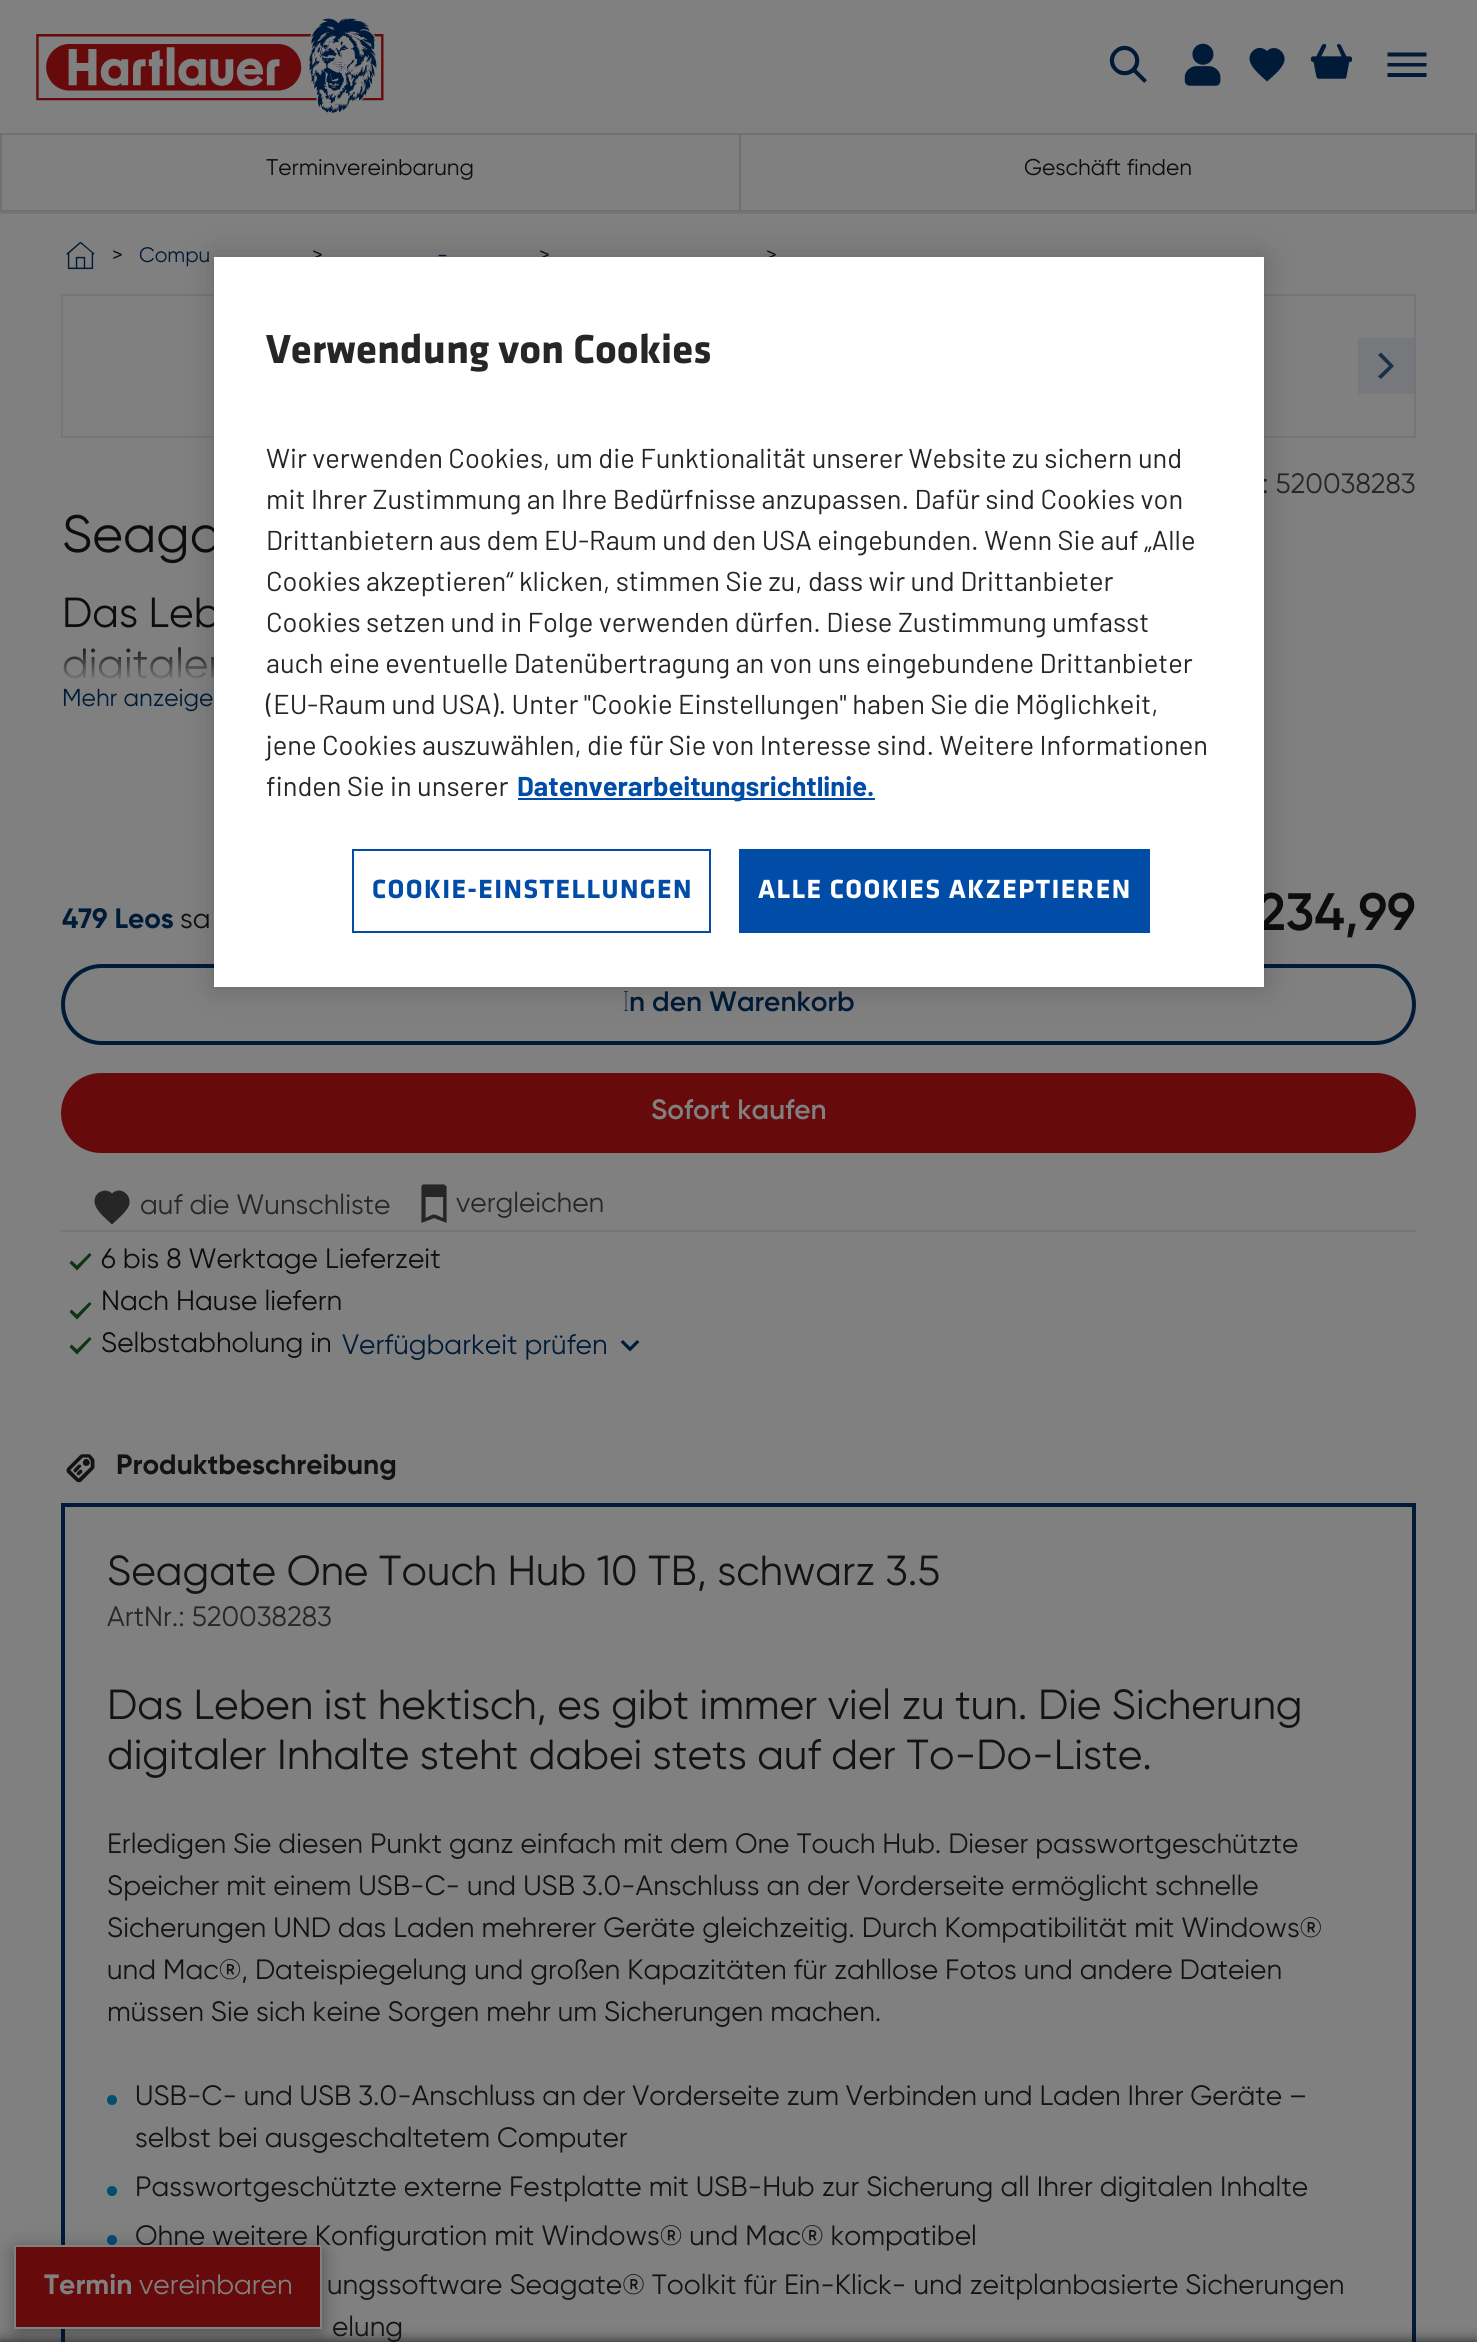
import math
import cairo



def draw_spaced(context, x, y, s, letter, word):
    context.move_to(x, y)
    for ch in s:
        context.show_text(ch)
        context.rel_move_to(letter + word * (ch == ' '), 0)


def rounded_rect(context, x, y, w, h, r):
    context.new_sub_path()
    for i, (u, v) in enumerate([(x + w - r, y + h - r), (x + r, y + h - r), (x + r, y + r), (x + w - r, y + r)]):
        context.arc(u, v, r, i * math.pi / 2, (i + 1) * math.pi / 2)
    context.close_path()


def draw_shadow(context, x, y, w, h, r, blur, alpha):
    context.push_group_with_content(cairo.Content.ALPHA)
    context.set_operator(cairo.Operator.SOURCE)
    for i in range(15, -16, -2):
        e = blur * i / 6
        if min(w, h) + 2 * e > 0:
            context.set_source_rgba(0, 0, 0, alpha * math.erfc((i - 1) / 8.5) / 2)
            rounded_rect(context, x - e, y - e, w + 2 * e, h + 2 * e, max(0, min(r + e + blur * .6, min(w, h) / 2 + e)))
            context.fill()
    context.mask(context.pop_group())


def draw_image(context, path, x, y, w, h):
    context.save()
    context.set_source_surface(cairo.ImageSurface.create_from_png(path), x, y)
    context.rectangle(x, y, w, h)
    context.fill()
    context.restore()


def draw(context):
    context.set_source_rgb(128 / 255, 128 / 255, 128 / 255)
    context.paint()
    draw_image(context, "images/1.png", 36, 18, 348, 95)
    draw_image(context, "images/2.png", 1109, 45, 38, 38)
    draw_image(context, "images/3.png", 1184, 43, 37, 43)
    context.set_source_rgb(0, 27 / 255, 56 / 255)
    context.new_path()
    context.move_to(1267, 81.5)
    context.curve_to(1260.5, 75, 1245.5, 64.5, 1250.5, 54)
    context.curve_to(1252, 51, 1254.5, 49, 1258, 48)
    context.curve_to(1261, 47.5, 1264.5, 48.5, 1267, 51)
    context.curve_to(1275, 43, 1287.5, 52.5, 1284, 62.5)
    context.curve_to(1281, 70, 1272.5, 76.5, 1267, 81.5)
    context.close_path()
    context.fill()
    draw_image(context, "images/4.png", 1311, 43, 42, 36)
    context.new_path()
    context.move_to(1426.5, 73)
    context.line_to(1426.5, 77)
    context.line_to(1387.5, 77)
    context.line_to(1387.5, 73)
    context.close_path()
    context.move_to(1426.5, 63)
    context.line_to(1426.5, 66.5)
    context.line_to(1387.5, 66.5)
    context.line_to(1387.5, 63)
    context.close_path()
    context.move_to(1426.5, 52.5)
    context.line_to(1426.5, 56.5)
    context.line_to(1387.5, 56.5)
    context.line_to(1387.5, 52.5)
    context.close_path()
    context.fill()
    context.set_source_rgb(110 / 255, 112 / 255, 115 / 255)
    context.rectangle(0, 133, 739, 2)
    context.fill()
    context.rectangle(0, 210, 739, 2)
    context.fill()
    context.rectangle(0, 133, 2, 79)
    context.fill()
    context.rectangle(740, 134, 736, 77)
    context.stroke()
    context.set_source_rgb(117 / 255, 118 / 255, 121 / 255)
    context.rectangle(0, 212, 1477, 2)
    context.fill()
    draw_image(context, "images/5.png", 66, 241, 29, 29)
    context.rectangle(62, 295, 1353, 142)
    context.stroke()
    context.set_source_rgb(119 / 255, 120 / 255, 123 / 255)
    context.rectangle(1358, 338, 56, 56)
    context.fill()
    context.set_source_rgb(26 / 255, 47 / 255, 71 / 255)
    context.new_path()
    context.move_to(1378, 355)
    context.line_to(1389, 366)
    context.line_to(1378, 376.5)
    context.line_to(1381, 379)
    context.line_to(1394, 366)
    context.line_to(1381, 352.5)
    context.close_path()
    context.fill()
    rounded_rect(context, 63, 966, 1351, 77, 38.5)
    context.set_source_rgb(0, 27 / 255, 56 / 255)
    context.set_line_width(4)
    context.stroke()
    context.set_source_rgb(103 / 255, 10 / 255, 11 / 255)
    rounded_rect(context, 63, 1075, 1351, 76, 38)
    context.fill_preserve()
    context.stroke()
    context.set_source_rgb(38 / 255, 38 / 255, 38 / 255)
    context.new_path()
    context.move_to(112, 1224.5)
    context.curve_to(105.5, 1218, 90.5, 1207.5, 95.5, 1196.5)
    context.curve_to(97, 1193.5, 99.5, 1191.5, 103, 1191)
    context.curve_to(106, 1190, 109.5, 1191, 112, 1193.5)
    context.curve_to(120, 1185.5, 132.5, 1195, 129, 1205.5)
    context.curve_to(126, 1212.5, 117.5, 1219, 112, 1224.5)
    context.close_path()
    context.fill()
    draw_image(context, "images/6.png", 421, 1184, 26, 39)
    context.set_source_rgb(117 / 255, 118 / 255, 121 / 255)
    context.rectangle(61, 1230, 1355, 2)
    context.fill()
    context.set_source_rgb(13 / 255, 52 / 255, 21 / 255)
    context.new_path()
    context.move_to(89.5, 1253)
    context.line_to(91.5, 1255)
    context.line_to(77, 1270.5)
    context.line_to(69.5, 1263)
    context.line_to(71.5, 1260.5)
    context.line_to(77, 1265.5)
    context.close_path()
    context.fill()
    context.new_path()
    context.move_to(89.5, 1302)
    context.line_to(91.5, 1304)
    context.line_to(77, 1319.5)
    context.line_to(69.5, 1312)
    context.line_to(71.5, 1309.5)
    context.line_to(77, 1314.5)
    context.close_path()
    context.fill()
    context.new_path()
    context.move_to(89.5, 1337)
    context.line_to(91.5, 1339)
    context.line_to(77, 1354.5)
    context.line_to(69.5, 1347)
    context.line_to(71.5, 1344.5)
    context.line_to(77, 1349.5)
    context.close_path()
    context.fill()
    context.set_source_rgb(0, 27 / 255, 56 / 255)
    context.new_path()
    context.move_to(637, 1340)
    context.line_to(630, 1347)
    context.line_to(623, 1340)
    context.line_to(620.5, 1342)
    context.line_to(630, 1351.5)
    context.line_to(639.5, 1342)
    context.close_path()
    context.fill()
    draw_image(context, "images/7.png", 66, 1454, 29, 29)
    context.rectangle(63, 1505, 1351, 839)
    context.stroke()
    context.set_source_rgb(0, 79 / 255, 114 / 255)
    context.arc(112, 2100, 5, 0, 2 * math.pi)
    context.fill()
    context.arc(112, 2191, 5, 0, 2 * math.pi)
    context.fill()
    context.arc(112, 2240, 5, 0, 2 * math.pi)
    context.fill()
    context.set_source_rgb(13 / 255, 13 / 255, 13 / 255)
    draw_shadow(context, 0, 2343, 1477, 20, 0, 7, 1)
    context.set_source_rgb(0, 0, 0)
    draw_shadow(context, 18, 2252, 301, 77, 0, 10.5, 0.5)
    context.select_font_face("Gilroy")
    context.set_font_size(22.75)
    context.set_source_rgb(13 / 255, 13 / 255, 13 / 255)
    context.move_to(266, 175)
    context.show_text("Terminvereinbarung")
    context.move_to(1024, 175)
    context.show_text("Geschäft finden")
    context.set_font_size(21)
    context.move_to(112, 262)
    context.show_text(">")
    context.set_source_rgb(0, 27 / 255, 56 / 255)
    context.move_to(139, 262)
    context.show_text("Compu")
    context.set_source_rgb(13 / 255, 13 / 255, 13 / 255)
    context.move_to(312, 262)
    context.show_text(">")
    context.set_source_rgb(0, 27 / 255, 56 / 255)
    context.move_to(437, 262)
    context.show_text("-")
    context.set_source_rgb(13 / 255, 13 / 255, 13 / 255)
    context.move_to(539, 262)
    context.show_text(">")
    context.move_to(766, 262)
    context.show_text(">")
    context.set_font_size(28)
    context.set_source_rgb(38 / 255, 38 / 255, 38 / 255)
    context.move_to(1262, 493)
    context.show_text(": 520038283")
    context.set_font_size(52.5)
    context.set_source_rgb(13 / 255, 13 / 255, 13 / 255)
    context.move_to(62, 552)
    context.show_text("Seaga")
    context.set_font_size(42)
    context.move_to(62, 627)
    context.show_text("Das Leb")
    context.save()
    context.rectangle(61, 592, 1355, 87)
    context.clip()
    context.move_to(62, 678)
    context.show_text("digitaler")
    context.restore()
    gradient = cairo.LinearGradient(739, 644, 739, 679)
    gradient.add_color_stop_rgba(0, 128 / 255, 128 / 255, 128 / 255, 0)
    gradient.add_color_stop_rgba(1, 128 / 255, 128 / 255, 128 / 255, 0.9)
    context.set_source(gradient)
    context.rectangle(63, 647, 158, 32)
    context.fill()
    context.set_font_size(24.5)
    context.set_source_rgb(0, 27 / 255, 56 / 255)
    context.move_to(62, 706)
    context.show_text("Mehr anzeige")
    context.select_font_face("Gilroy", cairo.FontSlant.NORMAL, cairo.FontWeight.BOLD)
    context.set_font_size(28)
    context.move_to(62, 928)
    context.show_text("479 Leos")
    context.select_font_face("Gilroy")
    context.set_source_rgb(13 / 255, 13 / 255, 13 / 255)
    context.move_to(180, 928)
    context.show_text("sa")
    context.select_font_face("Gilroy SemiBold")
    context.set_font_size(52.5)
    draw_spaced(context, 1258, 930, "234,99", 0, -3)
    context.select_font_face("Noto Sans Thin")
    context.set_font_size(28)
    context.set_source_rgb(0, 27 / 255, 56 / 255)
    context.move_to(622, 1011)
    context.show_text("I")
    context.select_font_face("Gilroy SemiBold")
    context.move_to(629, 1011)
    context.show_text("n den Warenkorb")
    context.set_source_rgb(128 / 255, 128 / 255, 128 / 255)
    context.move_to(651, 1119)
    context.show_text("Sofort kaufen")
    context.select_font_face("Gilroy")
    context.set_source_rgb(38 / 255, 38 / 255, 38 / 255)
    context.move_to(140, 1214)
    context.show_text("auf die Wunschliste")
    context.move_to(456, 1212)
    context.show_text("vergleichen")
    context.set_source_rgb(13 / 255, 13 / 255, 13 / 255)
    context.move_to(101, 1268)
    context.show_text("6 bis 8 Werktage Lieferzeit")
    context.move_to(101, 1310)
    context.show_text("Nach Hause liefern")
    context.move_to(101, 1352)
    context.show_text("Selbstabholung in")
    context.set_source_rgb(0, 27 / 255, 56 / 255)
    context.move_to(342, 1354)
    context.show_text("Verfügbarkeit prüfen")
    context.select_font_face("Gilroy", cairo.FontSlant.NORMAL, cairo.FontWeight.BOLD)
    context.set_source_rgb(17 / 255, 19 / 255, 21 / 255)
    context.move_to(116, 1474)
    context.show_text("Produktbeschreibung")
    context.select_font_face("Gilroy")
    context.set_font_size(42)
    context.move_to(107, 1585)
    context.show_text("Seagate One Touch Hub 10 TB, schwarz 3.5")
    context.set_font_size(28)
    context.set_source_rgb(38 / 255, 38 / 255, 38 / 255)
    context.move_to(107, 1626)
    context.show_text("ArtNr.: 520038283")
    context.set_font_size(42)
    context.set_source_rgb(17 / 255, 19 / 255, 21 / 255)
    context.move_to(107, 1719)
    context.show_text("Das Leben ist hektisch, es gibt immer viel zu tun. Die Sicherung")
    context.move_to(107, 1769)
    context.show_text("digitaler Inhalte steht dabei stets auf der To-Do-Liste.")
    context.set_font_size(28)
    context.move_to(107, 1853)
    context.show_text("Erledigen Sie diesen Punkt ganz einfach mit dem One Touch Hub. Dieser passwortgeschützte")
    context.move_to(107, 1895)
    context.show_text("Speicher mit einem USB-C- und USB 3.0-Anschluss an der Vorderseite ermöglicht schnelle")
    context.move_to(107, 1937)
    context.show_text("Sicherungen UND das Laden mehrerer Geräte gleichzeitig. Durch Kompatibilität mit Windows®")
    context.move_to(107, 1979)
    context.show_text("und Mac®, Dateispiegelung und großen Kapazitäten für zahllose Fotos und andere Dateien")
    context.move_to(107, 2021)
    context.show_text("müssen Sie sich keine Sorgen mehr um Sicherungen machen.")
    draw_spaced(context, 135, 2105, "USB-C- und USB 3.0-Anschluss an der Vorderseite zum Verbinden und Laden Ihrer Geräte –", 0, -0.25)
    context.move_to(135, 2147)
    context.show_text("selbst bei ausgeschaltetem Computer")
    context.move_to(135, 2196)
    context.show_text("Passwortgeschützte externe Festplatte mit USB-Hub zur Sicherung all Ihrer digitalen Inhalte")
    context.move_to(135, 2245)
    context.show_text("Ohne weitere Konfiguration mit Windows® und Mac® kompatibel")
    context.move_to(327, 2294)
    context.show_text("ungssoftware Seagate® Toolkit für Ein-Klick- und zeitplanbasierte Sicherungen")
    context.move_to(332, 2336)
    context.show_text("elung")
    context.set_source_rgb(103 / 255, 10 / 255, 11 / 255)
    context.rectangle(15, 2246, 306, 82)
    context.fill_preserve()
    context.set_source_rgb(128 / 255, 128 / 255, 128 / 255)
    context.set_line_width(2)
    context.stroke()
    context.select_font_face("Gilroy", cairo.FontSlant.NORMAL, cairo.FontWeight.BOLD)
    context.move_to(44, 2294)
    context.show_text("Termin")
    context.select_font_face("Gilroy")
    context.move_to(139, 2294)
    context.show_text("vereinbaren")
    context.set_source_rgb(0, 0, 0)
    draw_shadow(context, 214, 257, 1050, 730, 0, 16, 0.2)
    context.set_source_rgb(1, 1, 1)
    context.rectangle(214, 257, 1050, 730)
    context.fill()
    context.select_font_face("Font", cairo.FontSlant.NORMAL, cairo.FontWeight.BOLD)
    context.set_font_size(42)
    context.set_source_rgb(38 / 255, 38 / 255, 38 / 255)
    context.move_to(266, 363)
    context.show_text("Verwendung von Cookies")
    context.select_font_face("Barlow")
    context.set_font_size(27.3)
    context.move_to(266, 468)
    context.show_text("Wir verwenden Cookies, um die Funktionalität unserer Website zu sichern und")
    context.move_to(266, 509)
    context.show_text("mit Ihrer Zustimmung an Ihre Bedürfnisse anzupassen. Dafür sind Cookies von")
    context.move_to(266, 550)
    context.show_text("Drittanbietern aus dem EU-Raum und den USA eingebunden. Wenn Sie auf „Alle")
    context.move_to(266, 591)
    context.show_text("Cookies akzeptieren“ klicken, stimmen Sie zu, dass wir und Drittanbieter")
    context.move_to(266, 632)
    context.show_text("Cookies setzen und in Folge verwenden dürfen. Diese Zustimmung umfasst")
    context.move_to(266, 673)
    context.show_text("auch eine eventuelle Datenübertragung an von uns eingebundene Drittanbieter")
    context.move_to(266, 714)
    context.show_text("(EU-Raum und USA). Unter \"Cookie Einstellungen\" haben Sie die Möglichkeit,")
    context.move_to(266, 755)
    context.show_text("jene Cookies auszuwählen, die für Sie von Interesse sind. Weitere Informationen")
    context.move_to(266, 796)
    context.show_text("finden Sie in unserer")
    context.set_source_rgb(0, 76 / 255, 167 / 255)
    context.rectangle(518, 798, 357, 2)
    context.fill()
    context.select_font_face("Barlow", cairo.FontSlant.NORMAL, cairo.FontWeight.BOLD)
    context.move_to(517, 796)
    context.show_text("Datenverarbeitungsrichtlinie.")
    context.rectangle(353, 850, 357, 82)
    context.stroke()
    context.select_font_face("Font", cairo.FontSlant.NORMAL, cairo.FontWeight.BOLD)
    draw_spaced(context, 372, 898, "COOKIE-EINSTELLUNGEN", 1.4, 0)
    context.rectangle(739, 849, 411, 84)
    context.fill()
    context.set_source_rgb(1, 1, 1)
    draw_spaced(context, 758, 898, "ALLE COOKIES AKZEPTIEREN", 1.4, 0)


surface = cairo.ImageSurface(cairo.Format.RGB24, 1477, 2342)
context = cairo.Context(surface)
options = cairo.FontOptions()
options.set_hint_metrics(cairo.HintMetrics.OFF)
options.set_hint_style(cairo.HintStyle.NONE)
context.set_font_options(options)
context.set_miter_limit(4)
draw(context)
surface.write_to_png("out.png")
